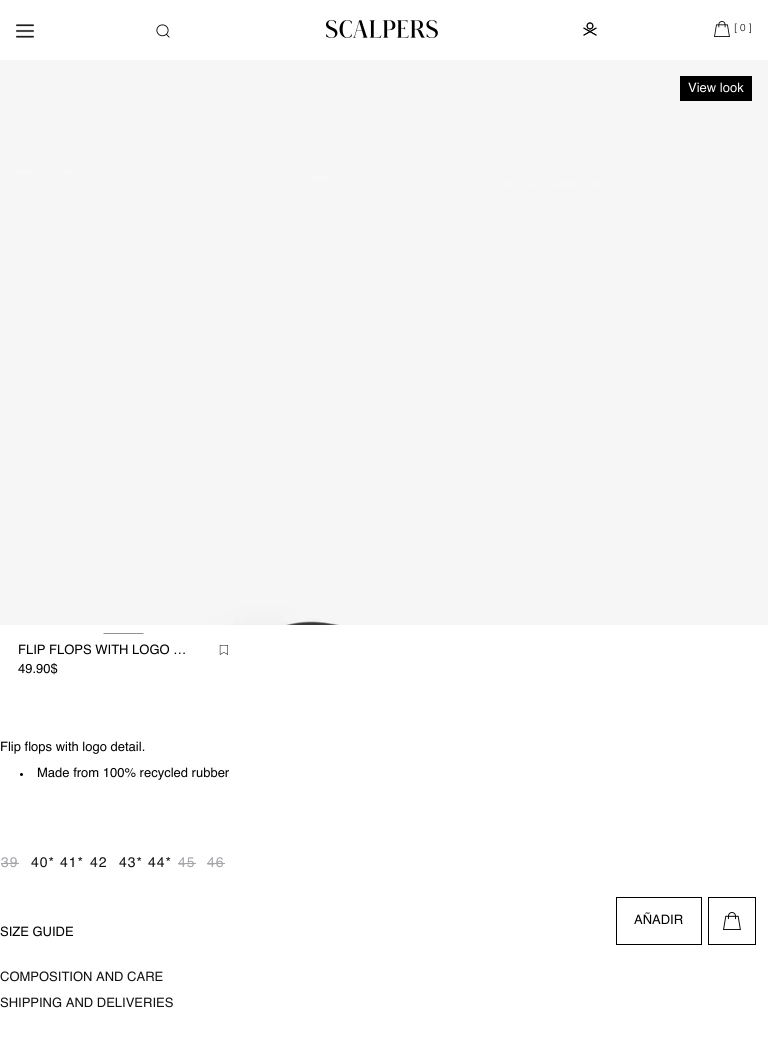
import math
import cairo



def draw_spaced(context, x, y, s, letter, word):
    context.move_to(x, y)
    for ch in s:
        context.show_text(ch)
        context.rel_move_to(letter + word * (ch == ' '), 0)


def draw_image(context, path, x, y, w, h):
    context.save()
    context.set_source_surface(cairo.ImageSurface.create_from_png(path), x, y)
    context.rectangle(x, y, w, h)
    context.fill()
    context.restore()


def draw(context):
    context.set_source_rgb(1, 1, 1)
    context.paint()
    draw_image(context, "images/1.png", 16, 24, 18, 14)
    draw_image(context, "images/2.png", 156, 24, 14, 14)
    draw_image(context, "images/3.png", 326, 20, 112, 18)
    draw_image(context, "images/4.png", 583, 22, 14, 14)
    draw_image(context, "images/5.png", 714, 21, 16, 16)
    draw_image(context, "images/6.png", 0, 60, 768, 565)
    context.set_source_rgb(0, 0, 0)
    context.rectangle(680, 76, 72, 25)
    context.fill()
    context.save()
    context.rectangle(103, 633, 55, 1)
    context.clip()
    context.new_path()
    context.move_to(103.5, 634)
    context.line_to(143.5, 634)
    context.set_source_rgb(38 / 255, 36 / 255, 36 / 255)
    context.set_line_width(1)
    context.stroke()
    context.restore()
    draw_image(context, "images/7.png", 219, 645, 9, 10)
    context.arc(21.5, 774.5, 1.5, 0, 2 * math.pi)
    context.fill()
    context.set_source_rgb(164 / 255, 164 / 255, 169 / 255)
    context.rectangle(1, 863, 18, 1)
    context.fill()
    context.rectangle(178, 863, 18, 1)
    context.fill()
    context.rectangle(207, 863, 18, 1)
    context.fill()
    context.rectangle(616.5, 897.5, 85, 47)
    context.set_source_rgb(0, 0, 0)
    context.set_line_width(1)
    context.stroke()
    context.rectangle(708.5, 897.5, 47, 47)
    context.stroke()
    draw_image(context, "images/8.png", 723, 912, 18, 18)
    context.select_font_face("Helvetica Light")
    context.set_font_size(10)
    context.move_to(734, 31)
    context.show_text("[ 0 ]")
    context.select_font_face("Helvetica")
    context.set_font_size(13)
    context.set_source_rgb(1, 1, 1)
    context.move_to(688, 92)
    context.show_text("View look")
    context.set_source_rgb(0, 0, 0)
    context.move_to(18, 654)
    context.show_text("FLIP FLOPS WITH LOGO …")
    context.move_to(18, 673)
    context.show_text("49.90$")
    context.move_to(0, 751)
    context.show_text("Flip flops with logo detail.")
    context.move_to(37, 777)
    context.show_text("Made from 100% recycled rubber")
    context.set_font_size(14)
    context.set_source_rgb(164 / 255, 164 / 255, 169 / 255)
    draw_spaced(context, 1, 867, "39", 1, 0)
    context.set_source_rgb(18 / 255, 18 / 255, 18 / 255)
    draw_spaced(context, 31, 867, "40*", 1, 0)
    draw_spaced(context, 60, 867, "41*", 1, 0)
    draw_spaced(context, 90, 867, "42", 1, 0)
    draw_spaced(context, 119, 867, "43*", 1, 0)
    draw_spaced(context, 148, 867, "44*", 1, 0)
    context.set_source_rgb(164 / 255, 164 / 255, 169 / 255)
    draw_spaced(context, 178, 867, "45", 1, 0)
    draw_spaced(context, 207, 867, "46", 1, 0)
    context.set_font_size(13)
    context.set_source_rgb(0, 0, 0)
    context.move_to(634, 924)
    context.show_text("AÑADIR")
    context.move_to(0, 936)
    context.show_text("SIZE GUIDE")
    context.set_source_rgb(18 / 255, 18 / 255, 18 / 255)
    context.move_to(0, 981)
    context.show_text("COMPOSITION AND CARE")
    context.move_to(0, 1007)
    context.show_text("SHIPPING AND DELIVERIES")


surface = cairo.ImageSurface(cairo.Format.RGB24, 768, 1050)
context = cairo.Context(surface)
options = cairo.FontOptions()
options.set_hint_metrics(cairo.HintMetrics.OFF)
options.set_hint_style(cairo.HintStyle.NONE)
context.set_font_options(options)
context.set_miter_limit(4)
draw(context)
surface.write_to_png("out.png")
